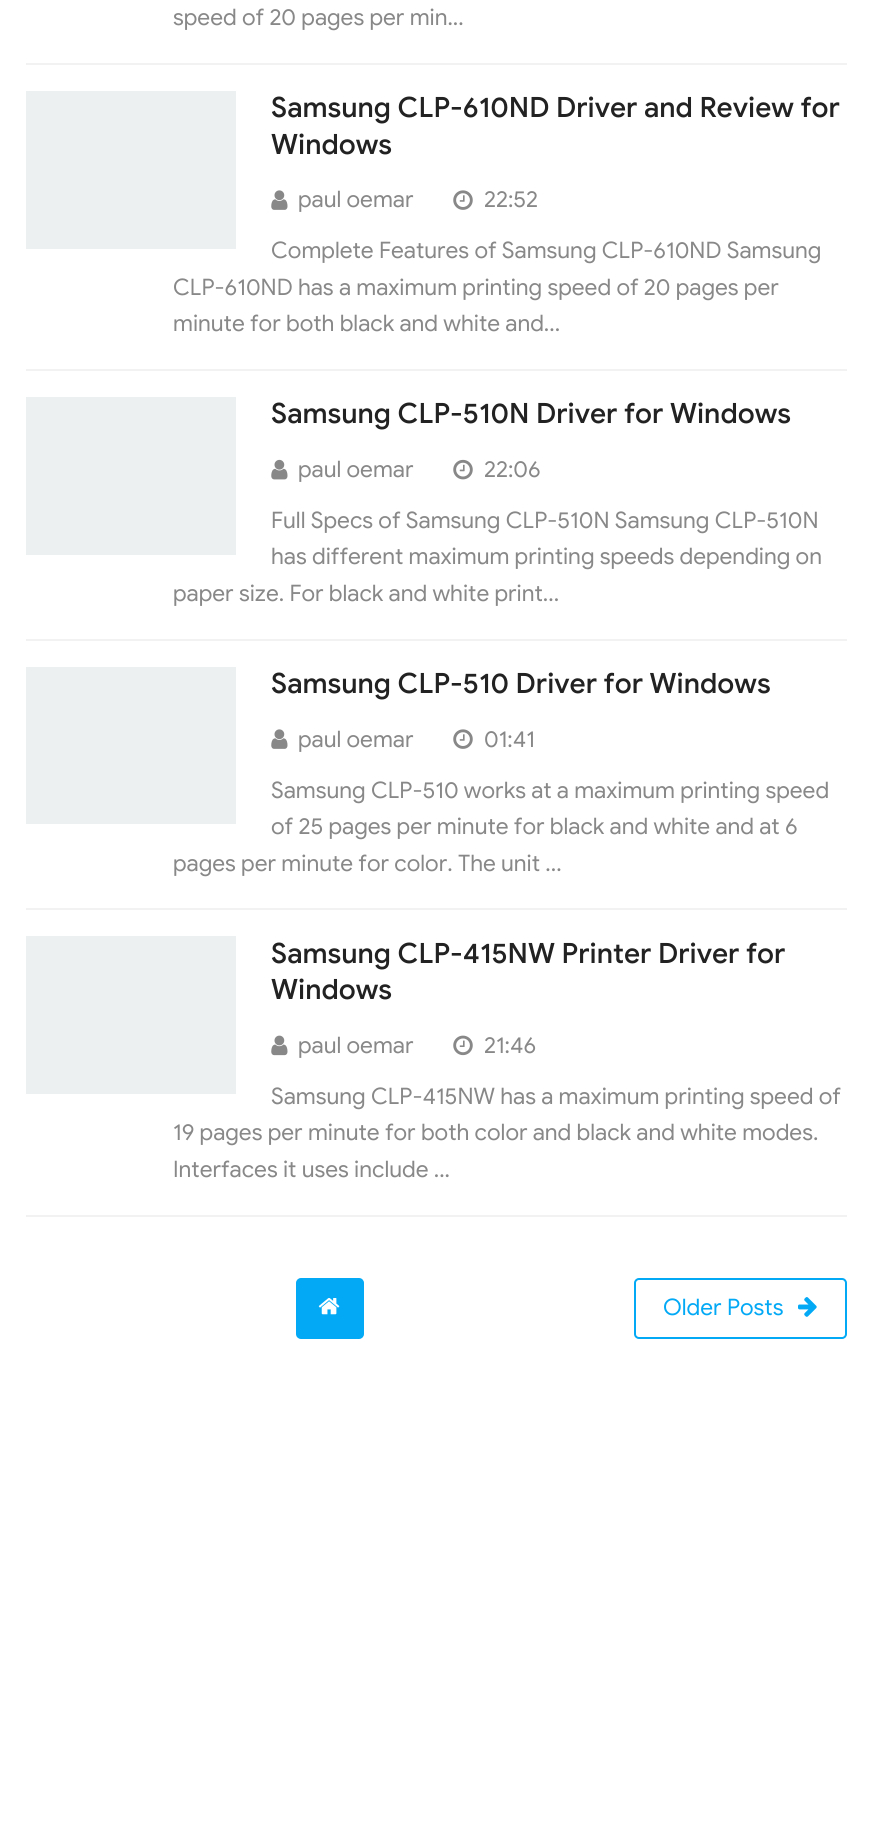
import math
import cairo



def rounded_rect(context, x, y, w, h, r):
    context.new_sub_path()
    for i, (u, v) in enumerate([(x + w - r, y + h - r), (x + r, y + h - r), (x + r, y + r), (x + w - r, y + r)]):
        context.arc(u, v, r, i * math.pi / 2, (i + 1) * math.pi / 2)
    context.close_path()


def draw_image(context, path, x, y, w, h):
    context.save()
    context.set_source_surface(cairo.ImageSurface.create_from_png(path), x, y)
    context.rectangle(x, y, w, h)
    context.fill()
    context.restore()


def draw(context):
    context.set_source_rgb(1, 1, 1)
    context.paint()
    context.set_source_rgb(242 / 255, 242 / 255, 242 / 255)
    context.rectangle(26, 63, 821, 2)
    context.fill()
    context.rectangle(26, 369, 821, 2)
    context.fill()
    context.set_source_rgb(236 / 255, 240 / 255, 241 / 255)
    context.rectangle(26, 91, 210, 158)
    context.fill()
    draw_image(context, "images/1.png", 271, 190, 17, 20)
    draw_image(context, "images/2.png", 453, 190, 20, 20)
    context.set_source_rgb(242 / 255, 242 / 255, 242 / 255)
    context.rectangle(26, 639, 821, 2)
    context.fill()
    context.set_source_rgb(236 / 255, 240 / 255, 241 / 255)
    context.rectangle(26, 397, 210, 158)
    context.fill()
    draw_image(context, "images/3.png", 271, 459, 17, 21)
    draw_image(context, "images/4.png", 453, 459, 20, 21)
    context.set_source_rgb(242 / 255, 242 / 255, 242 / 255)
    context.rectangle(26, 908, 821, 2)
    context.fill()
    context.set_source_rgb(236 / 255, 240 / 255, 241 / 255)
    context.rectangle(26, 667, 210, 157)
    context.fill()
    draw_image(context, "images/1.png", 271, 729, 17, 20)
    draw_image(context, "images/2.png", 453, 729, 20, 20)
    context.set_source_rgb(242 / 255, 242 / 255, 242 / 255)
    context.rectangle(26, 1215, 821, 2)
    context.fill()
    context.set_source_rgb(236 / 255, 240 / 255, 241 / 255)
    context.rectangle(26, 936, 210, 158)
    context.fill()
    draw_image(context, "images/5.png", 271, 1035, 17, 21)
    draw_image(context, "images/6.png", 453, 1035, 20, 21)
    context.set_source_rgb(3 / 255, 169 / 255, 245 / 255)
    rounded_rect(context, 297, 1279, 66, 59, 4)
    context.fill_preserve()
    context.stroke()
    draw_image(context, "images/7.png", 318, 1298, 22, 17)
    rounded_rect(context, 635, 1279, 211, 59, 4)
    context.stroke()
    draw_image(context, "images/8.png", 798, 1297, 19, 20)
    context.select_font_face("Google Sans")
    context.set_font_size(22.75)
    context.set_source_rgb(136 / 255, 136 / 255, 136 / 255)
    context.move_to(173, 25)
    context.show_text("speed of 20 pages per min...")
    context.select_font_face("Google Sans Medium")
    context.set_font_size(28)
    context.set_source_rgb(34 / 255, 34 / 255, 34 / 255)
    context.move_to(271, 117)
    context.show_text("Samsung CLP-610ND Driver and Review for")
    context.move_to(271, 154)
    context.show_text("Windows")
    context.select_font_face("Google Sans")
    context.set_font_size(22.75)
    context.set_source_rgb(136 / 255, 136 / 255, 136 / 255)
    context.move_to(298, 207)
    context.show_text("paul oemar")
    context.move_to(484, 207)
    context.show_text("22:52")
    context.move_to(271, 258)
    context.show_text("Complete Features of Samsung CLP-610ND Samsung")
    context.move_to(173, 295)
    context.show_text("CLP-610ND has a maximum printing speed of 20 pages per")
    context.move_to(173, 331)
    context.show_text("minute for both black and white and...")
    context.select_font_face("Google Sans Medium")
    context.set_font_size(28)
    context.set_source_rgb(34 / 255, 34 / 255, 34 / 255)
    context.move_to(271, 423)
    context.show_text("Samsung CLP-510N Driver for Windows")
    context.select_font_face("Google Sans")
    context.set_font_size(22.75)
    context.set_source_rgb(136 / 255, 136 / 255, 136 / 255)
    context.move_to(298, 477)
    context.show_text("paul oemar")
    context.move_to(484, 477)
    context.show_text("22:06")
    context.move_to(271, 528)
    context.show_text("Full Specs of Samsung CLP-510N Samsung CLP-510N")
    context.move_to(271, 564)
    context.show_text("has different maximum printing speeds depending on")
    context.move_to(173, 601)
    context.show_text("paper size. For black and white print...")
    context.select_font_face("Google Sans Medium")
    context.set_font_size(28)
    context.set_source_rgb(34 / 255, 34 / 255, 34 / 255)
    context.move_to(271, 693)
    context.show_text("Samsung CLP-510 Driver for Windows")
    context.select_font_face("Google Sans")
    context.set_font_size(22.75)
    context.set_source_rgb(136 / 255, 136 / 255, 136 / 255)
    context.move_to(298, 747)
    context.show_text("paul oemar")
    context.move_to(484, 747)
    context.show_text("01:41")
    context.move_to(271, 798)
    context.show_text("Samsung CLP-510 works at a maximum printing speed")
    context.move_to(271, 834)
    context.show_text("of 25 pages per minute for black and white and at 6")
    context.move_to(173, 871)
    context.show_text("pages per minute for color. The unit ...")
    context.select_font_face("Google Sans Medium")
    context.set_font_size(28)
    context.set_source_rgb(34 / 255, 34 / 255, 34 / 255)
    context.move_to(271, 963)
    context.show_text("Samsung CLP-415NW Printer Driver for")
    context.move_to(271, 999)
    context.show_text("Windows")
    context.select_font_face("Google Sans")
    context.set_font_size(22.75)
    context.set_source_rgb(136 / 255, 136 / 255, 136 / 255)
    context.move_to(298, 1053)
    context.show_text("paul oemar")
    context.move_to(484, 1053)
    context.show_text("21:46")
    context.move_to(271, 1104)
    context.show_text("Samsung CLP-415NW has a maximum printing speed of")
    context.move_to(173, 1140)
    context.show_text("19 pages per minute for both color and black and white modes.")
    context.move_to(173, 1177)
    context.show_text("Interfaces it uses include ...")
    context.set_source_rgb(3 / 255, 169 / 255, 245 / 255)
    context.move_to(663, 1315)
    context.show_text("Older Posts")


surface = cairo.ImageSurface(cairo.Format.RGB24, 872, 1836)
context = cairo.Context(surface)
options = cairo.FontOptions()
options.set_hint_metrics(cairo.HintMetrics.OFF)
options.set_hint_style(cairo.HintStyle.NONE)
context.set_font_options(options)
context.set_miter_limit(4)
draw(context)
surface.write_to_png("out.png")
